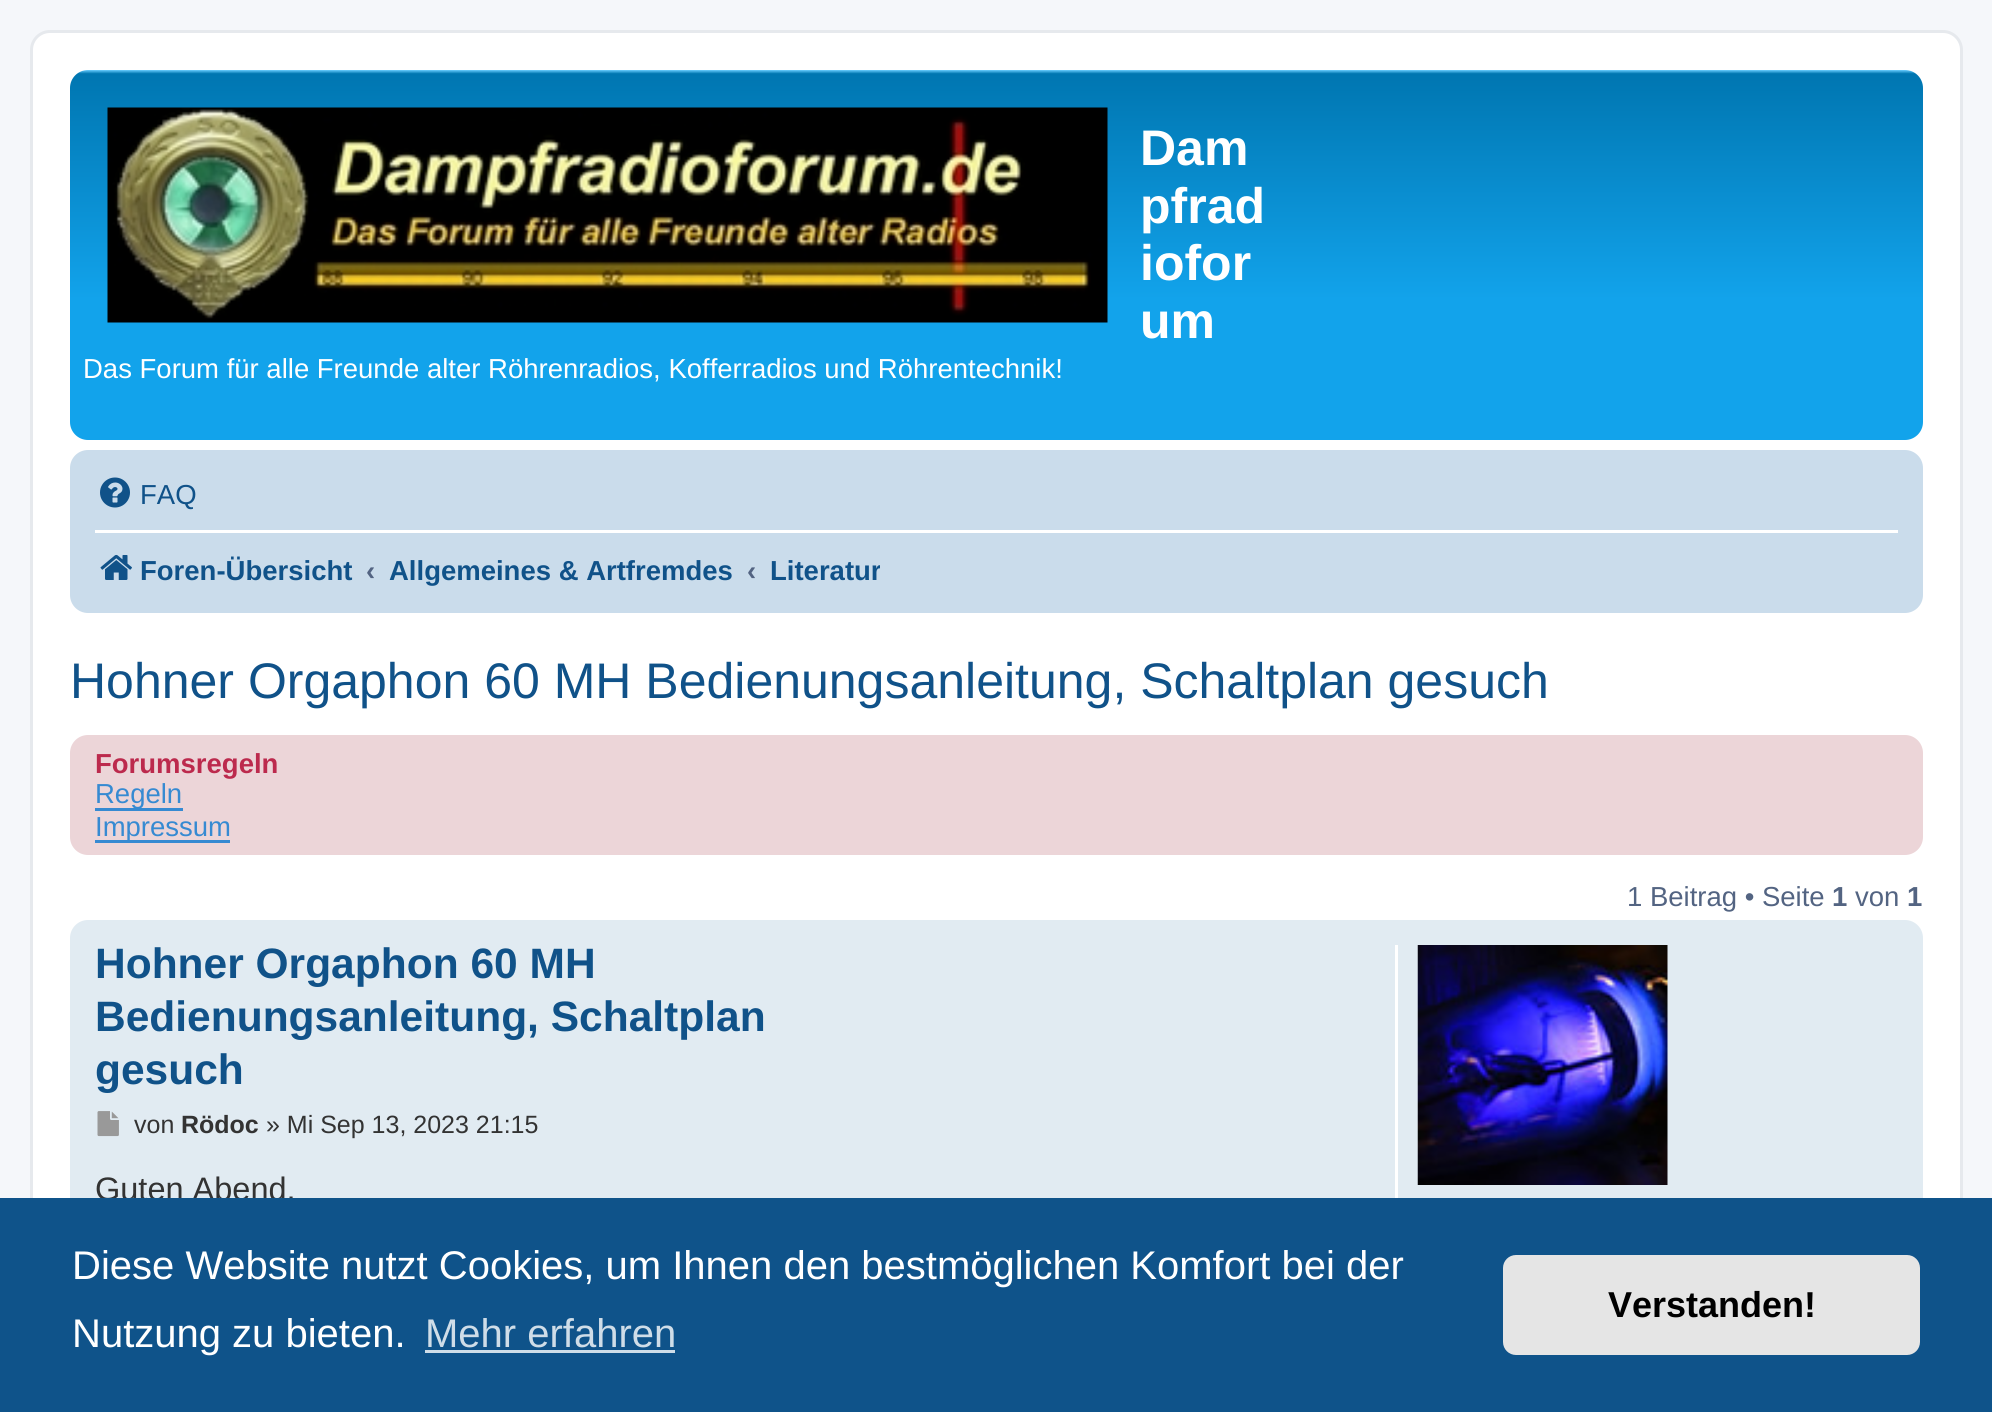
import math
import cairo



def rounded_rect(context, x, y, w, h, r):
    context.new_sub_path()
    for i, (u, v) in enumerate([(x + w - r, y + h - r), (x + r, y + h - r), (x + r, y + r), (x + w - r, y + r)]):
        context.arc(u, v, r, i * math.pi / 2, (i + 1) * math.pi / 2)
    context.close_path()


def draw_image(context, path, x, y, w, h):
    context.save()
    context.set_source_surface(cairo.ImageSurface.create_from_png(path), x, y)
    context.rectangle(x, y, w, h)
    context.fill()
    context.restore()


def draw(context):
    context.set_source_rgb(245 / 255, 247 / 255, 250 / 255)
    context.paint()
    context.set_source_rgb(1, 1, 1)
    rounded_rect(context, 31.5, 31.5, 1930, 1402, 18.5)
    context.fill_preserve()
    context.set_source_rgb(230 / 255, 233 / 255, 237 / 255)
    context.set_line_width(3)
    context.stroke()
    gradient = cairo.LinearGradient(996, 70, 996, 440)
    gradient.add_color_stop_rgba(0, 106 / 255, 206 / 255, 1, 1)
    gradient.add_color_stop_rgba(0.01, 0, 118 / 255, 177 / 255, 1)
    gradient.add_color_stop_rgba(0.62, 18 / 255, 163 / 255, 235 / 255, 1)
    gradient.add_color_stop_rgba(1, 18 / 255, 163 / 255, 235 / 255, 1)
    context.set_source(gradient)
    rounded_rect(context, 70, 70, 1853, 370, 18)
    context.fill()
    draw_image(context, "images/1.png", 107, 107, 1001, 216)
    context.set_source_rgb(202 / 255, 220 / 255, 235 / 255)
    rounded_rect(context, 70, 450, 1853, 163, 18)
    context.fill()
    draw_image(context, "images/2.png", 100, 477, 30, 31)
    context.set_source_rgb(1, 1, 1)
    context.rectangle(95, 530, 1803, 3)
    context.fill()
    draw_image(context, "images/3.png", 100, 554, 32, 26)
    context.set_source_rgb(236 / 255, 213 / 255, 216 / 255)
    rounded_rect(context, 70, 735, 1853, 120, 18)
    context.fill()
    context.set_source_rgb(54 / 255, 138 / 255, 210 / 255)
    context.rectangle(95, 808, 88, 3)
    context.fill()
    context.rectangle(95, 840, 135, 3)
    context.fill()
    context.set_source_rgb(225 / 255, 235 / 255, 242 / 255)
    rounded_rect(context, 70, 920, 1853, 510, 18)
    context.fill()
    draw_image(context, "images/4.png", 97, 1111, 22, 26)
    context.set_source_rgb(1, 1, 1)
    context.rectangle(1395, 945, 3, 253)
    context.fill()
    draw_image(context, "images/5.png", 1417, 945, 251, 240)
    context.select_font_face("Liberation Sans", cairo.FontSlant.NORMAL, cairo.FontWeight.BOLD)
    context.set_font_size(50)
    context.move_to(1140, 165)
    context.show_text("Dam")
    context.move_to(1140, 223)
    context.show_text("pfrad")
    context.move_to(1140, 280)
    context.show_text("iofor")
    context.move_to(1140, 338)
    context.show_text("um")
    context.select_font_face("Liberation Sans")
    context.set_font_size(27.5)
    context.move_to(83, 378)
    context.show_text("Das Forum für alle Freunde alter Röhrenradios, Kofferradios und Röhrentechnik!")
    context.set_source_rgb(16 / 255, 82 / 255, 137 / 255)
    context.move_to(140, 504)
    context.show_text("FAQ")
    context.select_font_face("Liberation Sans", cairo.FontSlant.NORMAL, cairo.FontWeight.BOLD)
    context.move_to(140, 580)
    context.show_text("Foren-Übersicht")
    context.set_source_rgb(83 / 255, 100 / 255, 130 / 255)
    context.move_to(366, 580)
    context.show_text("‹")
    context.set_source_rgb(16 / 255, 82 / 255, 137 / 255)
    context.move_to(389, 580)
    context.show_text("Allgemeines & Artfremdes")
    context.set_source_rgb(83 / 255, 100 / 255, 130 / 255)
    context.move_to(747, 580)
    context.show_text("‹")
    context.save()
    context.rectangle(770, 540, 110, 60)
    context.clip()
    context.set_source_rgb(16 / 255, 82 / 255, 137 / 255)
    context.move_to(770, 580)
    context.show_text("Literatur")
    context.restore()
    context.select_font_face("Liberation Sans")
    context.set_font_size(50)
    context.set_source_rgb(16 / 255, 82 / 255, 137 / 255)
    context.move_to(70, 698)
    context.show_text("Hohner Orgaphon 60 MH Bedienungsanleitung, Schaltplan gesuch")
    context.select_font_face("Liberation Sans", cairo.FontSlant.NORMAL, cairo.FontWeight.BOLD)
    context.set_font_size(27.5)
    context.set_source_rgb(188 / 255, 42 / 255, 77 / 255)
    context.move_to(95, 773)
    context.show_text("Forumsregeln")
    context.select_font_face("Liberation Sans")
    context.set_source_rgb(54 / 255, 138 / 255, 210 / 255)
    context.move_to(95, 803)
    context.show_text("Regeln")
    context.move_to(95, 836)
    context.show_text("Impressum")
    context.set_source_rgb(83 / 255, 100 / 255, 130 / 255)
    context.move_to(1627, 906)
    context.show_text("1 Beitrag • Seite")
    context.select_font_face("Liberation Sans", cairo.FontSlant.NORMAL, cairo.FontWeight.BOLD)
    context.move_to(1832, 906)
    context.show_text("1")
    context.select_font_face("Liberation Sans")
    context.move_to(1855, 906)
    context.show_text("von")
    context.select_font_face("Liberation Sans", cairo.FontSlant.NORMAL, cairo.FontWeight.BOLD)
    context.move_to(1907, 906)
    context.show_text("1")
    context.set_font_size(42.5)
    context.set_source_rgb(16 / 255, 82 / 255, 137 / 255)
    context.move_to(95, 978)
    context.show_text("Hohner Orgaphon 60 MH")
    context.move_to(95, 1031)
    context.show_text("Bedienungsanleitung, Schaltplan")
    context.move_to(95, 1084)
    context.show_text("gesuch")
    context.select_font_face("Liberation Sans")
    context.set_font_size(25)
    context.set_source_rgb(51 / 255, 51 / 255, 51 / 255)
    context.move_to(134, 1133)
    context.show_text("von")
    context.select_font_face("Liberation Sans", cairo.FontSlant.NORMAL, cairo.FontWeight.BOLD)
    context.move_to(181, 1133)
    context.show_text("Rödoc")
    context.select_font_face("Liberation Sans")
    context.move_to(266, 1133)
    context.show_text("» Mi Sep 13, 2023 21:15")
    context.set_font_size(32.5)
    context.move_to(95, 1200)
    context.show_text("Guten Abend,")
    context.set_source_rgb(15 / 255, 83 / 255, 138 / 255)
    context.rectangle(0, 1198, 1992, 214)
    context.fill()
    context.set_font_size(40)
    context.set_source_rgb(1, 1, 1)
    context.move_to(72, 1279)
    context.show_text("Diese Website nutzt Cookies, um Ihnen den bestmöglichen Komfort bei der")
    context.move_to(72, 1347)
    context.show_text("Nutzung zu bieten.")
    context.set_source_rgb(207 / 255, 221 / 255, 232 / 255)
    context.move_to(425, 1347)
    context.show_text("Mehr erfahren")
    context.rectangle(425, 1350, 250, 3)
    context.fill()
    context.set_source_rgb(229 / 255, 229 / 255, 229 / 255)
    rounded_rect(context, 1503, 1255, 417, 100, 13)
    context.fill()
    context.select_font_face("Liberation Sans", cairo.FontSlant.NORMAL, cairo.FontWeight.BOLD)
    context.set_font_size(36)
    context.set_source_rgb(0, 0, 0)
    context.move_to(1608, 1317)
    context.show_text("Verstanden!")


surface = cairo.ImageSurface(cairo.Format.RGB24, 1992, 1412)
context = cairo.Context(surface)
options = cairo.FontOptions()
options.set_hint_metrics(cairo.HintMetrics.OFF)
options.set_hint_style(cairo.HintStyle.NONE)
context.set_font_options(options)
context.set_miter_limit(4)
draw(context)
surface.write_to_png("out.png")
